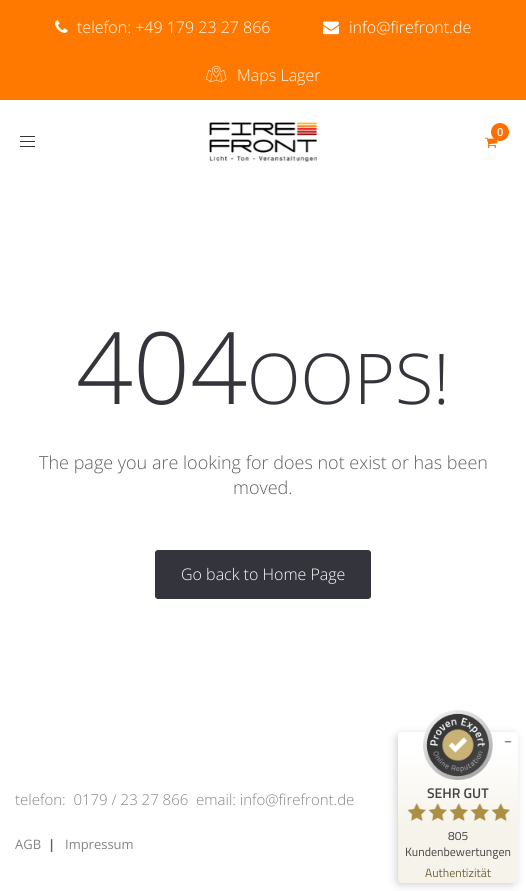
import math
import cairo



def rounded_rect(context, x, y, w, h, r):
    context.new_sub_path()
    for i, (u, v) in enumerate([(x + w - r, y + h - r), (x + r, y + h - r), (x + r, y + r), (x + w - r, y + r)]):
        context.arc(u, v, r, i * math.pi / 2, (i + 1) * math.pi / 2)
    context.close_path()


def draw_shadow(context, x, y, w, h, r, blur, alpha):
    context.push_group_with_content(cairo.Content.ALPHA)
    context.set_operator(cairo.Operator.SOURCE)
    for i in range(15, -16, -2):
        e = blur * i / 6
        if min(w, h) + 2 * e > 0:
            context.set_source_rgba(0, 0, 0, alpha * math.erfc((i - 1) / 8.5) / 2)
            rounded_rect(context, x - e, y - e, w + 2 * e, h + 2 * e, max(0, min(r + e + blur * .6, min(w, h) / 2 + e)))
            context.fill()
    context.mask(context.pop_group())


def draw_image(context, path, x, y, w, h):
    context.save()
    context.set_source_surface(cairo.ImageSurface.create_from_png(path), x, y)
    context.rectangle(x, y, w, h)
    context.fill()
    context.restore()


def draw(context):
    context.set_source_rgb(1, 1, 1)
    context.paint()
    context.set_source_rgb(1, 121 / 255, 0)
    context.rectangle(0, 0, 526, 100)
    context.fill()
    draw_image(context, "images/1.png", 55, 20, 13, 13)
    draw_image(context, "images/2.png", 323, 21, 16, 14)
    draw_image(context, "images/3.png", 206, 66, 21, 16)
    draw_image(context, "images/4.png", 209, 122, 108, 40)
    draw_image(context, "images/5.png", 485, 137, 13, 11)
    context.set_source_rgb(1, 110 / 255, 0)
    context.arc(500, 132, 9, 0, 2 * math.pi)
    context.fill()
    context.set_source_rgb(52 / 255, 52 / 255, 60 / 255)
    context.rectangle(20, 146, 15, 1)
    context.fill()
    context.rectangle(20, 136, 15, 1)
    context.fill()
    context.rectangle(20, 141, 15, 1)
    context.fill()
    rounded_rect(context, 155.5, 550.5, 215, 48, 2.5)
    context.fill_preserve()
    context.set_line_width(1)
    context.stroke()
    context.set_source_rgb(0, 0, 0)
    draw_shadow(context, 398, 736, 116, 147, 2, 5, 0.25)
    gradient = cairo.LinearGradient(458, 883, 458, 732)
    gradient.add_color_stop_rgba(0.37, 246 / 255, 243 / 255, 234 / 255, 1)
    gradient.add_color_stop_rgba(0.9, 1, 1, 1, 1)
    context.set_source(gradient)
    rounded_rect(context, 398, 732, 120, 151, 4)
    context.fill()
    draw_image(context, "images/6.png", 504, 741, 8, 2)
    draw_image(context, "images/7.png", 423, 710, 70, 70)
    draw_image(context, "images/8.png", 407, 803, 19, 18)
    draw_image(context, "images/8.png", 428, 803, 19, 18)
    draw_image(context, "images/9.png", 449, 803, 19, 18)
    draw_image(context, "images/9.png", 470, 803, 19, 18)
    draw_image(context, "images/9.png", 491, 803, 19, 18)
    context.select_font_face("Open Sans Light")
    context.set_font_size(16)
    context.set_source_rgb(1, 1, 1)
    context.move_to(77, 33)
    context.show_text("telefon: +49 179 23 27 866")
    context.move_to(349, 33)
    context.show_text("info@firefront.de")
    context.move_to(237, 81)
    context.show_text("Maps Lager")
    context.select_font_face("Open Sans SemiBold")
    context.set_font_size(11)
    context.move_to(497, 136)
    context.show_text("0")
    context.select_font_face("Open Sans Light")
    context.set_font_size(100)
    context.set_source_rgb(52 / 255, 52 / 255, 60 / 255)
    context.move_to(76, 404)
    context.show_text("404")
    context.set_font_size(70)
    context.move_to(247, 404)
    context.show_text("OOPS!")
    context.set_font_size(18)
    context.set_source_rgb(96 / 255, 96 / 255, 96 / 255)
    context.move_to(39, 469)
    context.show_text("The page you are looking for does not exist or has been")
    context.move_to(233, 494)
    context.show_text("moved.")
    context.set_font_size(16)
    context.set_source_rgb(1, 1, 1)
    context.move_to(181, 580)
    context.show_text("Go back to Home Page")
    context.set_font_size(15)
    context.set_source_rgb(132 / 255, 132 / 255, 132 / 255)
    context.move_to(15, 805)
    context.show_text("telefon:  0179 / 23 27 866  email: info@firefront.de")
    context.select_font_face("Open Sans")
    context.set_font_size(13)
    context.move_to(15, 849)
    context.show_text("AGB")
    context.select_font_face("Open Sans", cairo.FontSlant.NORMAL, cairo.FontWeight.BOLD)
    context.set_source_rgb(96 / 255, 96 / 255, 96 / 255)
    context.move_to(48, 849)
    context.show_text("|")
    context.select_font_face("Open Sans")
    context.set_source_rgb(132 / 255, 132 / 255, 132 / 255)
    context.move_to(65, 849)
    context.show_text("Impressum")
    context.select_font_face("Titillium Web SemiBold")
    context.set_font_size(14)
    context.set_source_rgb(68 / 255, 68 / 255, 68 / 255)
    context.move_to(427, 798)
    context.show_text("SEHR GUT")
    context.select_font_face("Titillium Web")
    context.set_font_size(12)
    context.move_to(448, 840)
    context.show_text("805")
    context.move_to(405, 856)
    context.show_text("Kundenbewertungen")
    context.set_source_rgb(114 / 255, 101 / 255, 66 / 255)
    context.move_to(425, 877)
    context.show_text("Authentizität")


surface = cairo.ImageSurface(cairo.Format.RGB24, 526, 891)
context = cairo.Context(surface)
options = cairo.FontOptions()
options.set_hint_metrics(cairo.HintMetrics.OFF)
options.set_hint_style(cairo.HintStyle.NONE)
context.set_font_options(options)
context.set_miter_limit(4)
draw(context)
surface.write_to_png("out.png")
